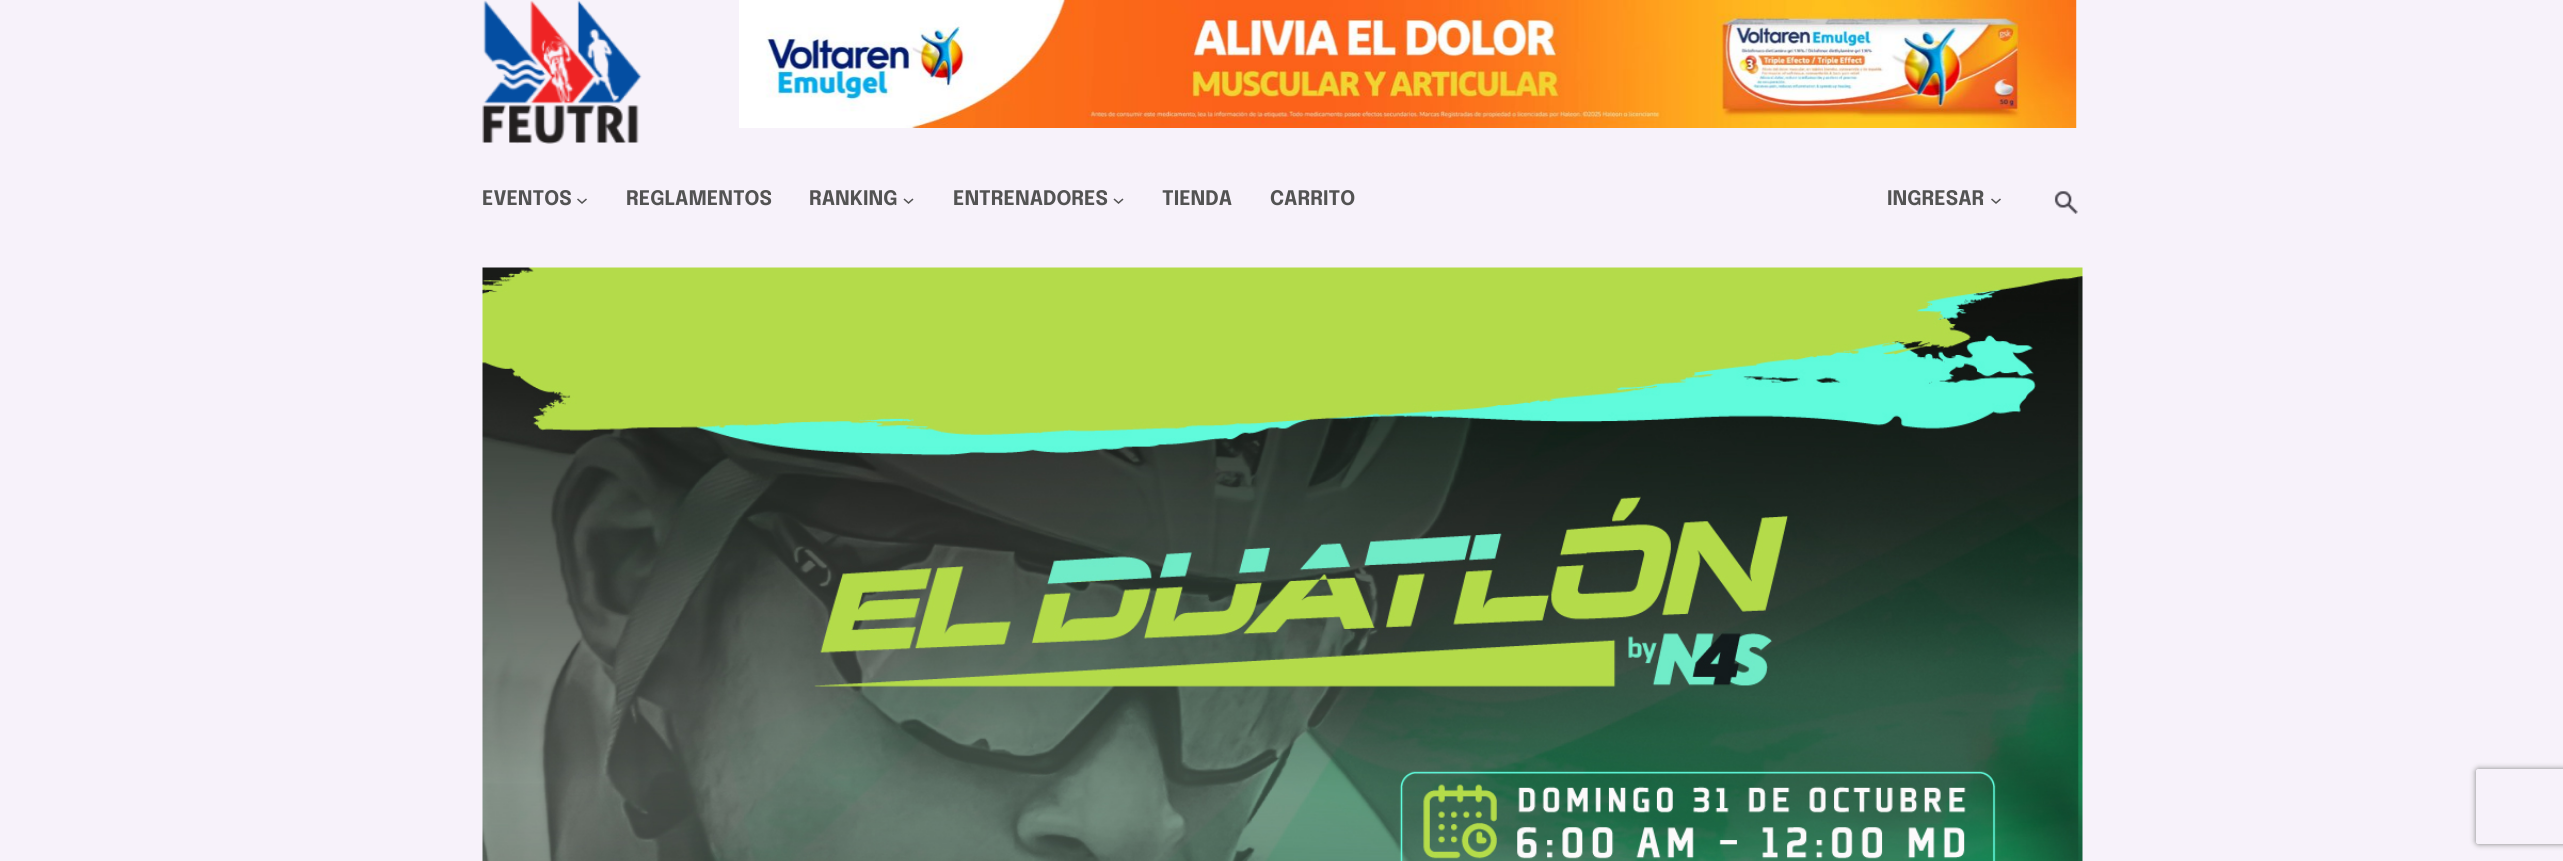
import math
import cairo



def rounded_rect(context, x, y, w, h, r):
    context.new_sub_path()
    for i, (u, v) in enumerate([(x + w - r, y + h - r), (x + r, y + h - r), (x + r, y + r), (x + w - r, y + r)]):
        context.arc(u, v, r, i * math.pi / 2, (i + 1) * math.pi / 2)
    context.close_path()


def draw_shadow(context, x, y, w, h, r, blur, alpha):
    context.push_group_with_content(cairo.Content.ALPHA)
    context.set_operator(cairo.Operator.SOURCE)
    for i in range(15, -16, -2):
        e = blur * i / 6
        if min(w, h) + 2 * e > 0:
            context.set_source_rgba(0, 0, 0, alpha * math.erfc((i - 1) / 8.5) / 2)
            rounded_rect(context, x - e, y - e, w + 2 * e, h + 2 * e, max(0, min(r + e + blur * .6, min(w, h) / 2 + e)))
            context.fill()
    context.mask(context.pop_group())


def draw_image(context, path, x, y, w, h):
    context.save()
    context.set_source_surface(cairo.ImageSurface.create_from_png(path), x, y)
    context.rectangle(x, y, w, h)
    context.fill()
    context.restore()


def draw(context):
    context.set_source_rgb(247 / 255, 242 / 255, 250 / 255)
    context.paint()
    draw_image(context, "images/1.png", 482, 0, 160, 144)
    draw_image(context, "images/2.png", 739, 0, 1338, 128)
    context.new_path()
    context.move_to(577.5, 199)
    context.line_to(582, 203)
    context.line_to(586.5, 199)
    context.set_source_rgb(83 / 255, 83 / 255, 83 / 255)
    context.set_line_width(1.5)
    context.stroke()
    context.new_path()
    context.move_to(904, 199)
    context.line_to(908.5, 203)
    context.line_to(913, 199)
    context.stroke()
    context.new_path()
    context.move_to(1114, 199)
    context.line_to(1118.5, 203)
    context.line_to(1123, 199)
    context.stroke()
    context.new_path()
    context.move_to(1991.5, 199)
    context.line_to(1996, 203)
    context.line_to(2000.5, 199)
    context.stroke()
    draw_image(context, "images/3.png", 2054, 191, 24, 23)
    draw_image(context, "images/4.png", 482, 267, 1601, 594)
    context.save()
    context.set_fill_rule(cairo.FillRule.EVEN_ODD)
    context.new_path()
    context.move_to(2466, 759)
    context.line_to(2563, 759)
    context.line_to(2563, 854)
    context.line_to(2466, 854)
    context.close_path()
    context.move_to(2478.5, 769)
    context.line_to(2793.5, 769)
    context.curve_to(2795, 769, 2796, 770, 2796, 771.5)
    context.line_to(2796, 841.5)
    context.curve_to(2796, 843, 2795, 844, 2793.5, 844)
    context.line_to(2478.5, 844)
    context.curve_to(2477, 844, 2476, 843, 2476, 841.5)
    context.line_to(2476, 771.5)
    context.curve_to(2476, 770, 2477, 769, 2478.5, 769)
    context.close_path()
    context.clip()
    context.set_source_rgb(128 / 255, 128 / 255, 128 / 255)
    draw_shadow(context, 2476, 769, 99, 75, 2.5, 3, 1)
    context.restore()
    context.select_font_face("Epilogue", cairo.FontSlant.NORMAL, cairo.FontWeight.BOLD)
    context.set_font_size(20)
    context.move_to(482, 205)
    context.show_text("EVENTOS")
    context.move_to(626, 205)
    context.show_text("REGLAMENTOS")
    context.move_to(809, 205)
    context.show_text("RANKING")
    context.move_to(953, 205)
    context.show_text("ENTRENADORES")
    context.move_to(1162, 205)
    context.show_text("TIENDA")
    context.move_to(1270, 205)
    context.show_text("CARRITO")
    context.move_to(1887, 205)
    context.show_text("INGRESAR")


surface = cairo.ImageSurface(cairo.Format.RGB24, 2563, 861)
context = cairo.Context(surface)
options = cairo.FontOptions()
options.set_hint_metrics(cairo.HintMetrics.OFF)
options.set_hint_style(cairo.HintStyle.NONE)
context.set_font_options(options)
context.set_miter_limit(4)
draw(context)
surface.write_to_png("out.png")
